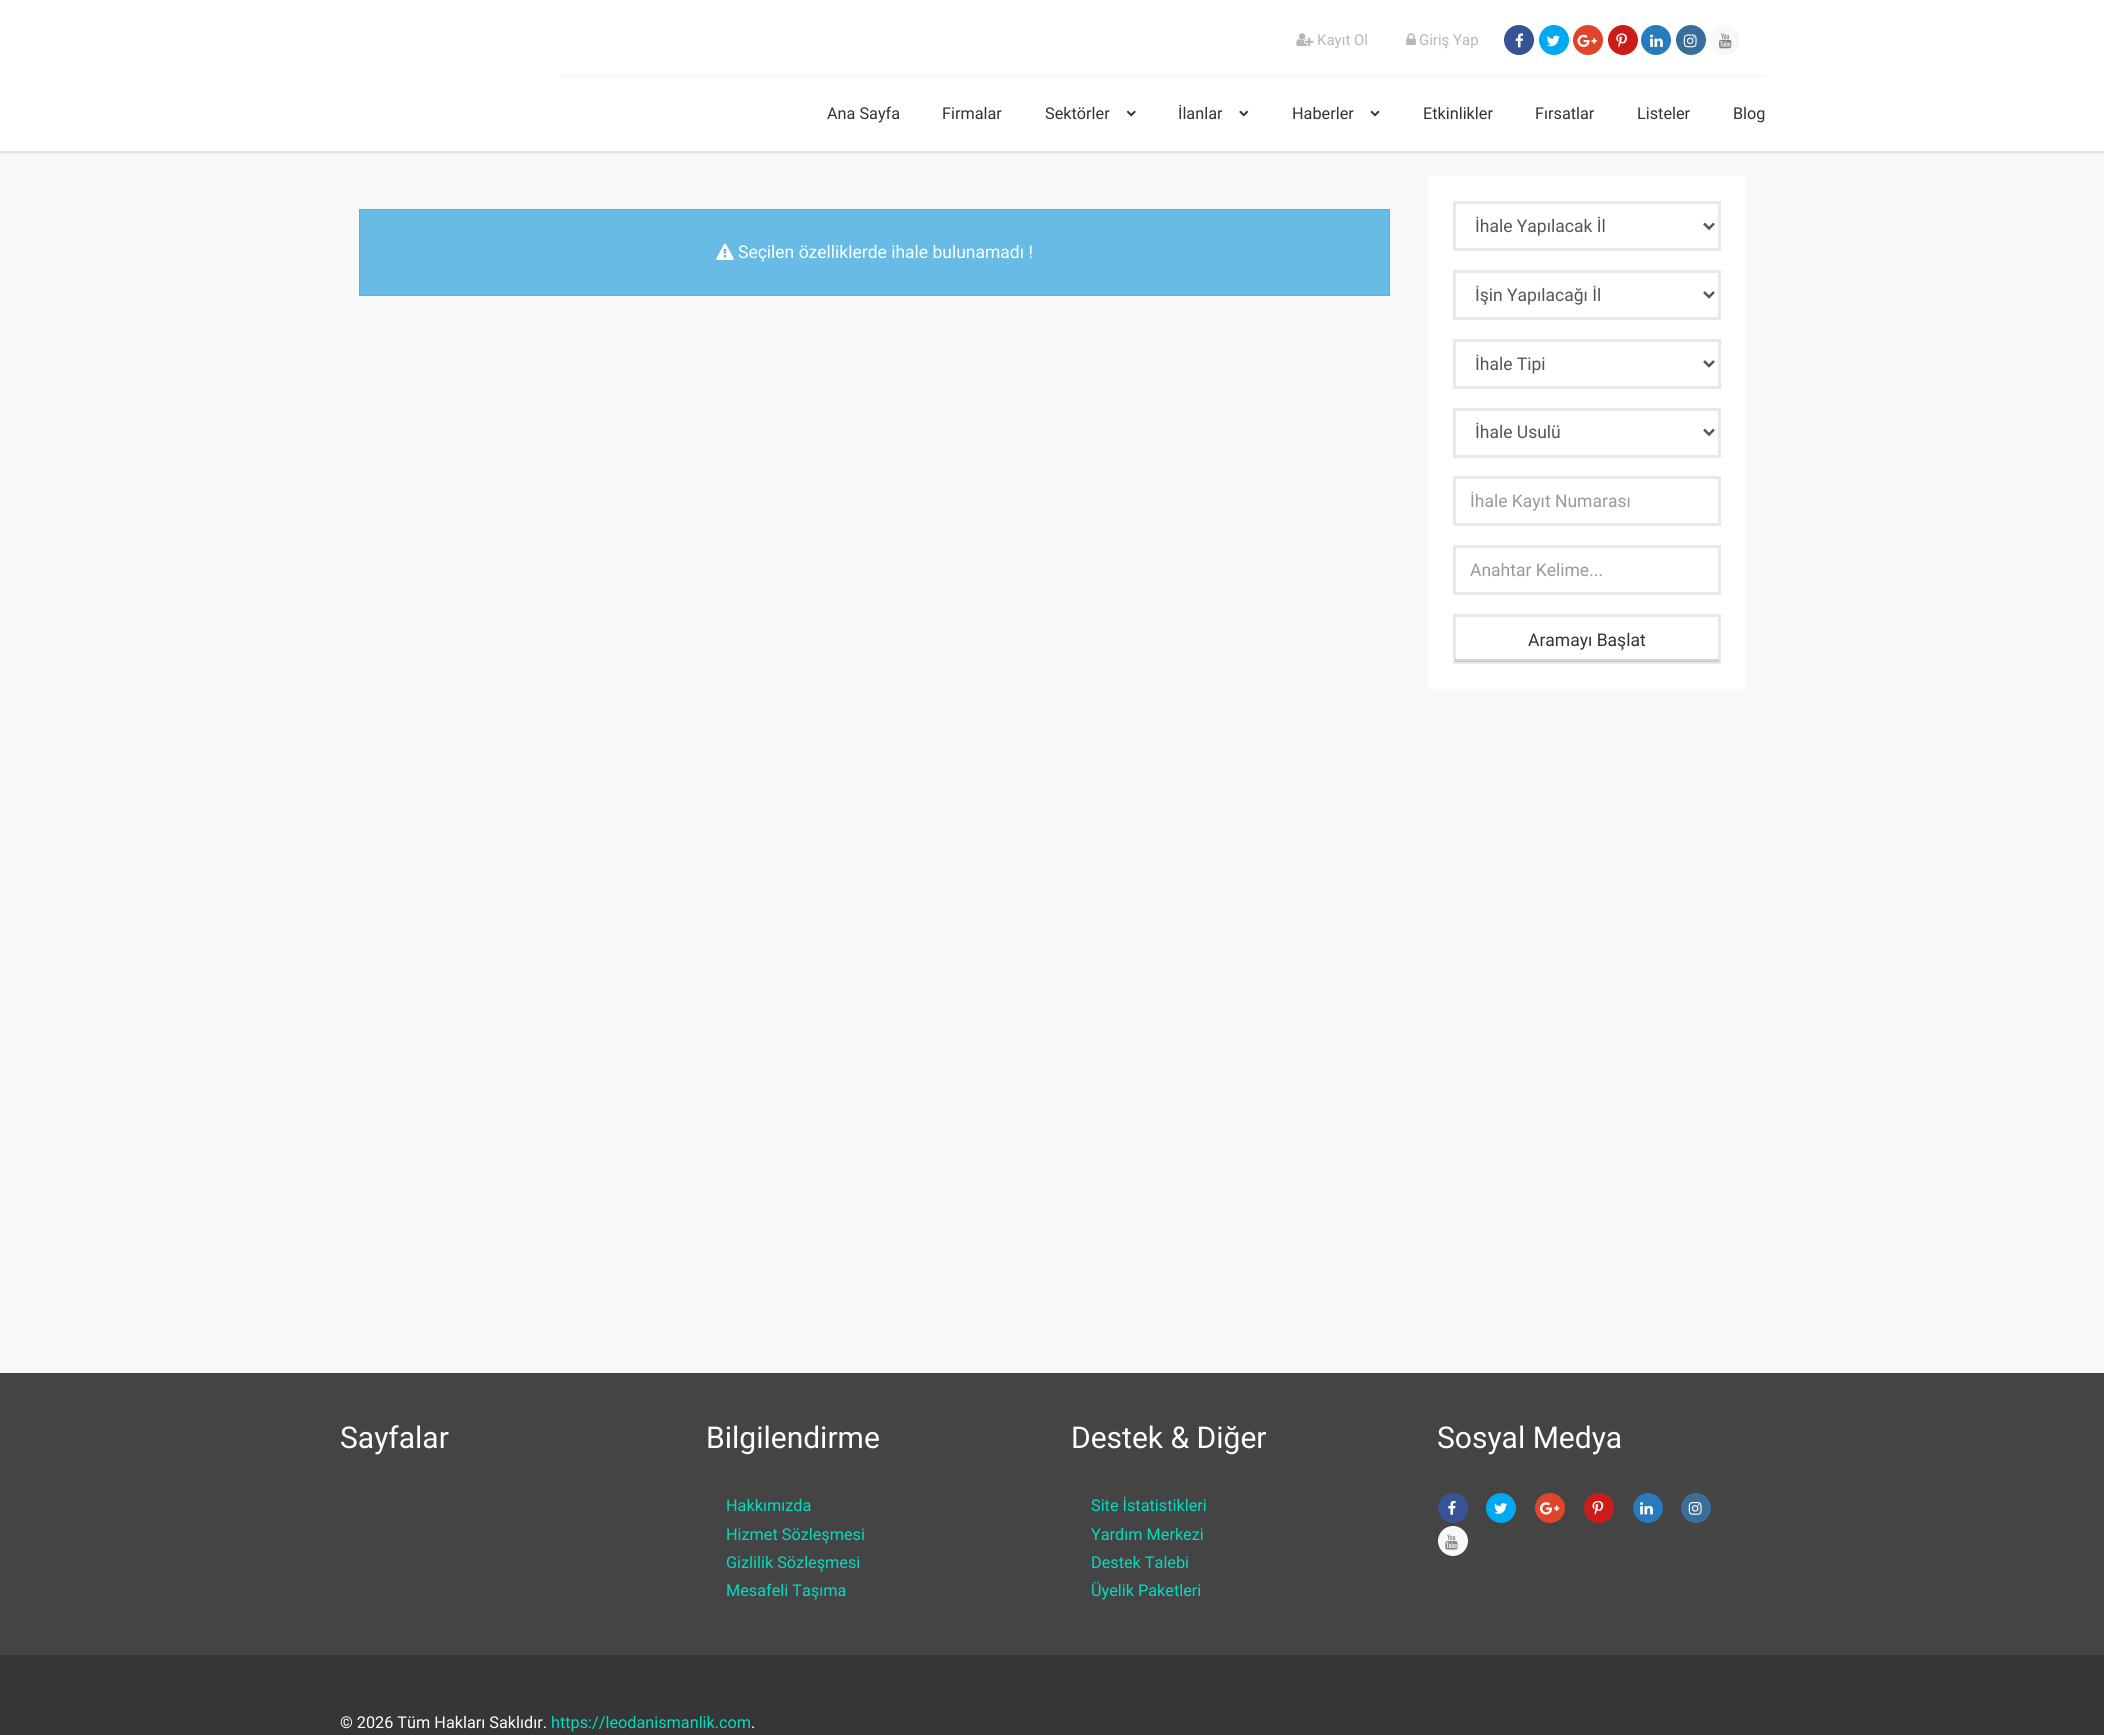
import math
import cairo



def rounded_rect(context, x, y, w, h, r):
    context.new_sub_path()
    for i, (u, v) in enumerate([(x + w - r, y + h - r), (x + r, y + h - r), (x + r, y + r), (x + w - r, y + r)]):
        context.arc(u, v, r, i * math.pi / 2, (i + 1) * math.pi / 2)
    context.close_path()


def draw_shadow(context, x, y, w, h, r, blur, alpha):
    context.push_group_with_content(cairo.Content.ALPHA)
    context.set_operator(cairo.Operator.SOURCE)
    for i in range(15, -16, -2):
        e = blur * i / 6
        if min(w, h) + 2 * e > 0:
            context.set_source_rgba(0, 0, 0, alpha * math.erfc((i - 1) / 8.5) / 2)
            rounded_rect(context, x - e, y - e, w + 2 * e, h + 2 * e, max(0, min(r + e + blur * .6, min(w, h) / 2 + e)))
            context.fill()
    context.mask(context.pop_group())


def draw_image(context, path, x, y, w, h):
    context.save()
    context.set_source_surface(cairo.ImageSurface.create_from_png(path), x, y)
    context.rectangle(x, y, w, h)
    context.fill()
    context.restore()


def draw(context):
    context.set_source_rgb(247 / 255, 248 / 255, 249 / 255)
    context.paint()
    context.set_source_rgb(0, 0, 0)
    draw_shadow(context, 0, 1, 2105, 152, 0, 0.5, 0.1)
    context.set_source_rgb(1, 1, 1)
    context.rectangle(0, 0, 2104, 151)
    context.fill()
    context.set_source_rgb(242 / 255, 242 / 255, 242 / 255)
    context.rectangle(560, 76, 1205, 1)
    context.fill()
    draw_image(context, "images/1.png", 1296, 33, 18, 14)
    draw_image(context, "images/2.png", 1406, 33, 10, 12)
    context.set_source_rgb(54 / 255, 83 / 255, 151 / 255)
    context.arc(1519, 40, 15, 0, 2 * math.pi)
    context.fill()
    draw_image(context, "images/3.png", 1515, 33, 9, 15)
    context.set_source_rgb(0, 169 / 255, 241 / 255)
    context.arc(1554, 40, 15, 0, 2 * math.pi)
    context.fill()
    draw_image(context, "images/4.png", 1546, 35, 14, 12)
    context.set_source_rgb(224 / 255, 69 / 255, 44 / 255)
    context.arc(1588, 40, 15, 0, 2 * math.pi)
    context.fill()
    draw_image(context, "images/5.png", 1577, 34, 20, 13)
    context.set_source_rgb(206 / 255, 26 / 255, 25 / 255)
    context.arc(1623, 40, 15, 0, 2 * math.pi)
    context.fill()
    draw_image(context, "images/6.png", 1616, 33, 11, 15)
    context.set_source_rgb(40 / 255, 123 / 255, 188 / 255)
    context.arc(1656, 40, 15, 0, 2 * math.pi)
    context.fill()
    draw_image(context, "images/7.png", 1650, 34, 13, 13)
    context.set_source_rgb(57 / 255, 109 / 255, 154 / 255)
    context.arc(1691, 40, 15, 0, 2 * math.pi)
    context.fill()
    draw_image(context, "images/8.png", 1683, 34, 14, 14)
    context.set_source_rgb(247 / 255, 248 / 255, 249 / 255)
    context.arc(1725, 40, 15, 0, 2 * math.pi)
    context.fill()
    draw_image(context, "images/9.png", 1719, 33, 13, 16)
    draw_image(context, "images/10.png", 1126, 110, 10, 7)
    draw_image(context, "images/11.png", 1239, 110, 10, 7)
    draw_image(context, "images/12.png", 1370, 110, 10, 7)
    context.set_source_rgb(103 / 255, 187 / 255, 229 / 255)
    context.rectangle(359.5, 209.5, 1030, 86)
    context.fill_preserve()
    context.set_source_rgb(81 / 255, 177 / 255, 225 / 255)
    context.set_line_width(1)
    context.stroke()
    draw_image(context, "images/13.png", 716, 243, 18, 17)
    context.set_source_rgb(1, 1, 1)
    context.rectangle(1428, 176, 318, 513)
    context.fill()
    context.rectangle(1454.5, 202.5, 265, 47)
    context.set_source_rgb(233 / 255, 233 / 255, 233 / 255)
    context.set_line_width(3)
    context.stroke()
    context.new_path()
    context.move_to(1704, 223.5)
    context.line_to(1709, 228.5)
    context.line_to(1714, 223.5)
    context.set_source_rgb(85 / 255, 85 / 255, 85 / 255)
    context.set_line_width(2.5)
    context.stroke()
    context.rectangle(1454.5, 271.5, 265, 47)
    context.set_source_rgb(233 / 255, 233 / 255, 233 / 255)
    context.set_line_width(3)
    context.stroke()
    context.new_path()
    context.move_to(1704, 292)
    context.line_to(1709, 297)
    context.line_to(1714, 292)
    context.set_source_rgb(85 / 255, 85 / 255, 85 / 255)
    context.set_line_width(2.5)
    context.stroke()
    context.rectangle(1454.5, 340.5, 265, 47)
    context.set_source_rgb(233 / 255, 233 / 255, 233 / 255)
    context.set_line_width(3)
    context.stroke()
    context.new_path()
    context.move_to(1704, 361)
    context.line_to(1709, 366)
    context.line_to(1714, 361)
    context.set_source_rgb(85 / 255, 85 / 255, 85 / 255)
    context.set_line_width(2.5)
    context.stroke()
    context.rectangle(1454.5, 409.5, 265, 47)
    context.set_source_rgb(233 / 255, 233 / 255, 233 / 255)
    context.set_line_width(3)
    context.stroke()
    context.new_path()
    context.move_to(1704, 429.5)
    context.line_to(1709, 434.5)
    context.line_to(1714, 429.5)
    context.set_source_rgb(85 / 255, 85 / 255, 85 / 255)
    context.set_line_width(2.5)
    context.stroke()
    context.rectangle(1454.5, 477.5, 265, 47)
    context.set_source_rgb(233 / 255, 233 / 255, 233 / 255)
    context.set_line_width(3)
    context.stroke()
    context.rectangle(1454.5, 546.5, 265, 47)
    context.stroke()
    context.rectangle(1454.5, 615.5, 265, 47)
    context.stroke()
    context.set_source_rgba(0, 0, 0, 0.15)
    context.rectangle(1455, 659, 264, 3)
    context.fill()
    context.set_source_rgb(68 / 255, 68 / 255, 68 / 255)
    context.rectangle(0, 1373, 2104, 282)
    context.fill()
    context.set_source_rgb(54 / 255, 83 / 255, 151 / 255)
    context.arc(1453, 1508, 15, 0, 2 * math.pi)
    context.fill()
    draw_image(context, "images/14.png", 1448, 1500, 8, 15)
    context.set_source_rgb(0, 169 / 255, 241 / 255)
    context.arc(1501, 1508, 15, 0, 2 * math.pi)
    context.fill()
    draw_image(context, "images/15.png", 1494, 1503, 14, 11)
    context.set_source_rgb(224 / 255, 69 / 255, 44 / 255)
    context.arc(1550, 1508, 15, 0, 2 * math.pi)
    context.fill()
    draw_image(context, "images/16.png", 1540, 1502, 20, 13)
    context.set_source_rgb(206 / 255, 26 / 255, 25 / 255)
    context.arc(1599, 1508, 15, 0, 2 * math.pi)
    context.fill()
    draw_image(context, "images/17.png", 1592, 1500, 12, 15)
    context.set_source_rgb(40 / 255, 123 / 255, 188 / 255)
    context.arc(1648, 1508, 15, 0, 2 * math.pi)
    context.fill()
    draw_image(context, "images/18.png", 1640, 1502, 13, 13)
    context.set_source_rgb(57 / 255, 109 / 255, 154 / 255)
    context.arc(1696, 1508, 15, 0, 2 * math.pi)
    context.fill()
    draw_image(context, "images/19.png", 1688, 1502, 14, 13)
    context.set_source_rgb(247 / 255, 248 / 255, 249 / 255)
    context.arc(1453, 1541, 15, 0, 2 * math.pi)
    context.fill()
    draw_image(context, "images/20.png", 1445, 1534, 13, 16)
    context.set_source_rgb(54 / 255, 54 / 255, 54 / 255)
    context.rectangle(0, 1655, 2104, 80)
    context.fill()
    context.select_font_face("Roboto")
    context.set_font_size(15)
    context.set_source_rgb(182 / 255, 183 / 255, 184 / 255)
    context.move_to(1317, 45)
    context.show_text("Kayıt Ol")
    context.move_to(1419, 45)
    context.show_text("Giriş Yap")
    context.set_font_size(16.25)
    context.set_source_rgb(51 / 255, 51 / 255, 51 / 255)
    context.move_to(827, 119)
    context.show_text("Ana Sayfa")
    context.move_to(942, 119)
    context.show_text("Firmalar")
    context.move_to(1045, 119)
    context.show_text("Sektörler")
    context.move_to(1178, 119)
    context.show_text("İlanlar")
    context.move_to(1292, 119)
    context.show_text("Haberler")
    context.move_to(1423, 119)
    context.show_text("Etkinlikler")
    context.move_to(1535, 119)
    context.show_text("Fırsatlar")
    context.move_to(1637, 119)
    context.show_text("Listeler")
    context.move_to(1733, 119)
    context.show_text("Blog")
    context.set_font_size(17.5)
    context.set_source_rgb(1, 1, 1)
    context.move_to(738, 258)
    context.show_text("Seçilen özelliklerde ihale bulunamadı !")
    context.set_source_rgb(85 / 255, 85 / 255, 85 / 255)
    context.move_to(1475, 232)
    context.show_text("İhale Yapılacak İl")
    context.move_to(1475, 301)
    context.show_text("İşin Yapılacağı İl")
    context.move_to(1475, 370)
    context.show_text("İhale Tipi")
    context.move_to(1475, 438)
    context.show_text("İhale Usulü")
    context.set_source_rgb(153 / 255, 153 / 255, 153 / 255)
    context.move_to(1470, 507)
    context.show_text("İhale Kayıt Numarası")
    context.move_to(1470, 576)
    context.show_text("Anahtar Kelime...")
    context.set_source_rgb(51 / 255, 51 / 255, 51 / 255)
    context.move_to(1528, 646)
    context.show_text("Aramayı Başlat")
    context.set_font_size(30)
    context.set_source_rgb(1, 1, 1)
    context.move_to(340, 1448)
    context.show_text("Sayfalar")
    context.move_to(706, 1448)
    context.show_text("Bilgilendirme")
    context.set_font_size(16.25)
    context.set_source_rgb(0, 220 / 255, 193 / 255)
    context.move_to(726, 1511)
    context.show_text("Hakkımızda")
    context.move_to(726, 1540)
    context.show_text("Hizmet Sözleşmesi")
    context.move_to(726, 1568)
    context.show_text("Gizlilik Sözleşmesi")
    context.move_to(726, 1596)
    context.show_text("Mesafeli Taşıma")
    context.set_font_size(30)
    context.set_source_rgb(1, 1, 1)
    context.move_to(1071, 1448)
    context.show_text("Destek & Diğer")
    context.set_font_size(16.25)
    context.set_source_rgb(0, 220 / 255, 193 / 255)
    context.move_to(1091, 1511)
    context.show_text("Site İstatistikleri")
    context.move_to(1091, 1540)
    context.show_text("Yardım Merkezi")
    context.move_to(1091, 1568)
    context.show_text("Destek Talebi")
    context.move_to(1091, 1596)
    context.show_text("Üyelik Paketleri")
    context.set_font_size(30)
    context.set_source_rgb(1, 1, 1)
    context.move_to(1437, 1448)
    context.show_text("Sosyal Medya")
    context.set_font_size(16.25)
    context.move_to(340, 1728)
    context.show_text("© 2026 Tüm Hakları Saklıdır.")
    context.set_source_rgb(0, 220 / 255, 193 / 255)
    context.move_to(551, 1728)
    context.show_text("https://leodanismanlik.com")
    context.set_source_rgb(1, 1, 1)
    context.move_to(751, 1728)
    context.show_text(".")


surface = cairo.ImageSurface(cairo.Format.RGB24, 2104, 1735)
context = cairo.Context(surface)
options = cairo.FontOptions()
options.set_hint_metrics(cairo.HintMetrics.OFF)
options.set_hint_style(cairo.HintStyle.NONE)
context.set_font_options(options)
context.set_miter_limit(4)
draw(context)
surface.write_to_png("out.png")
